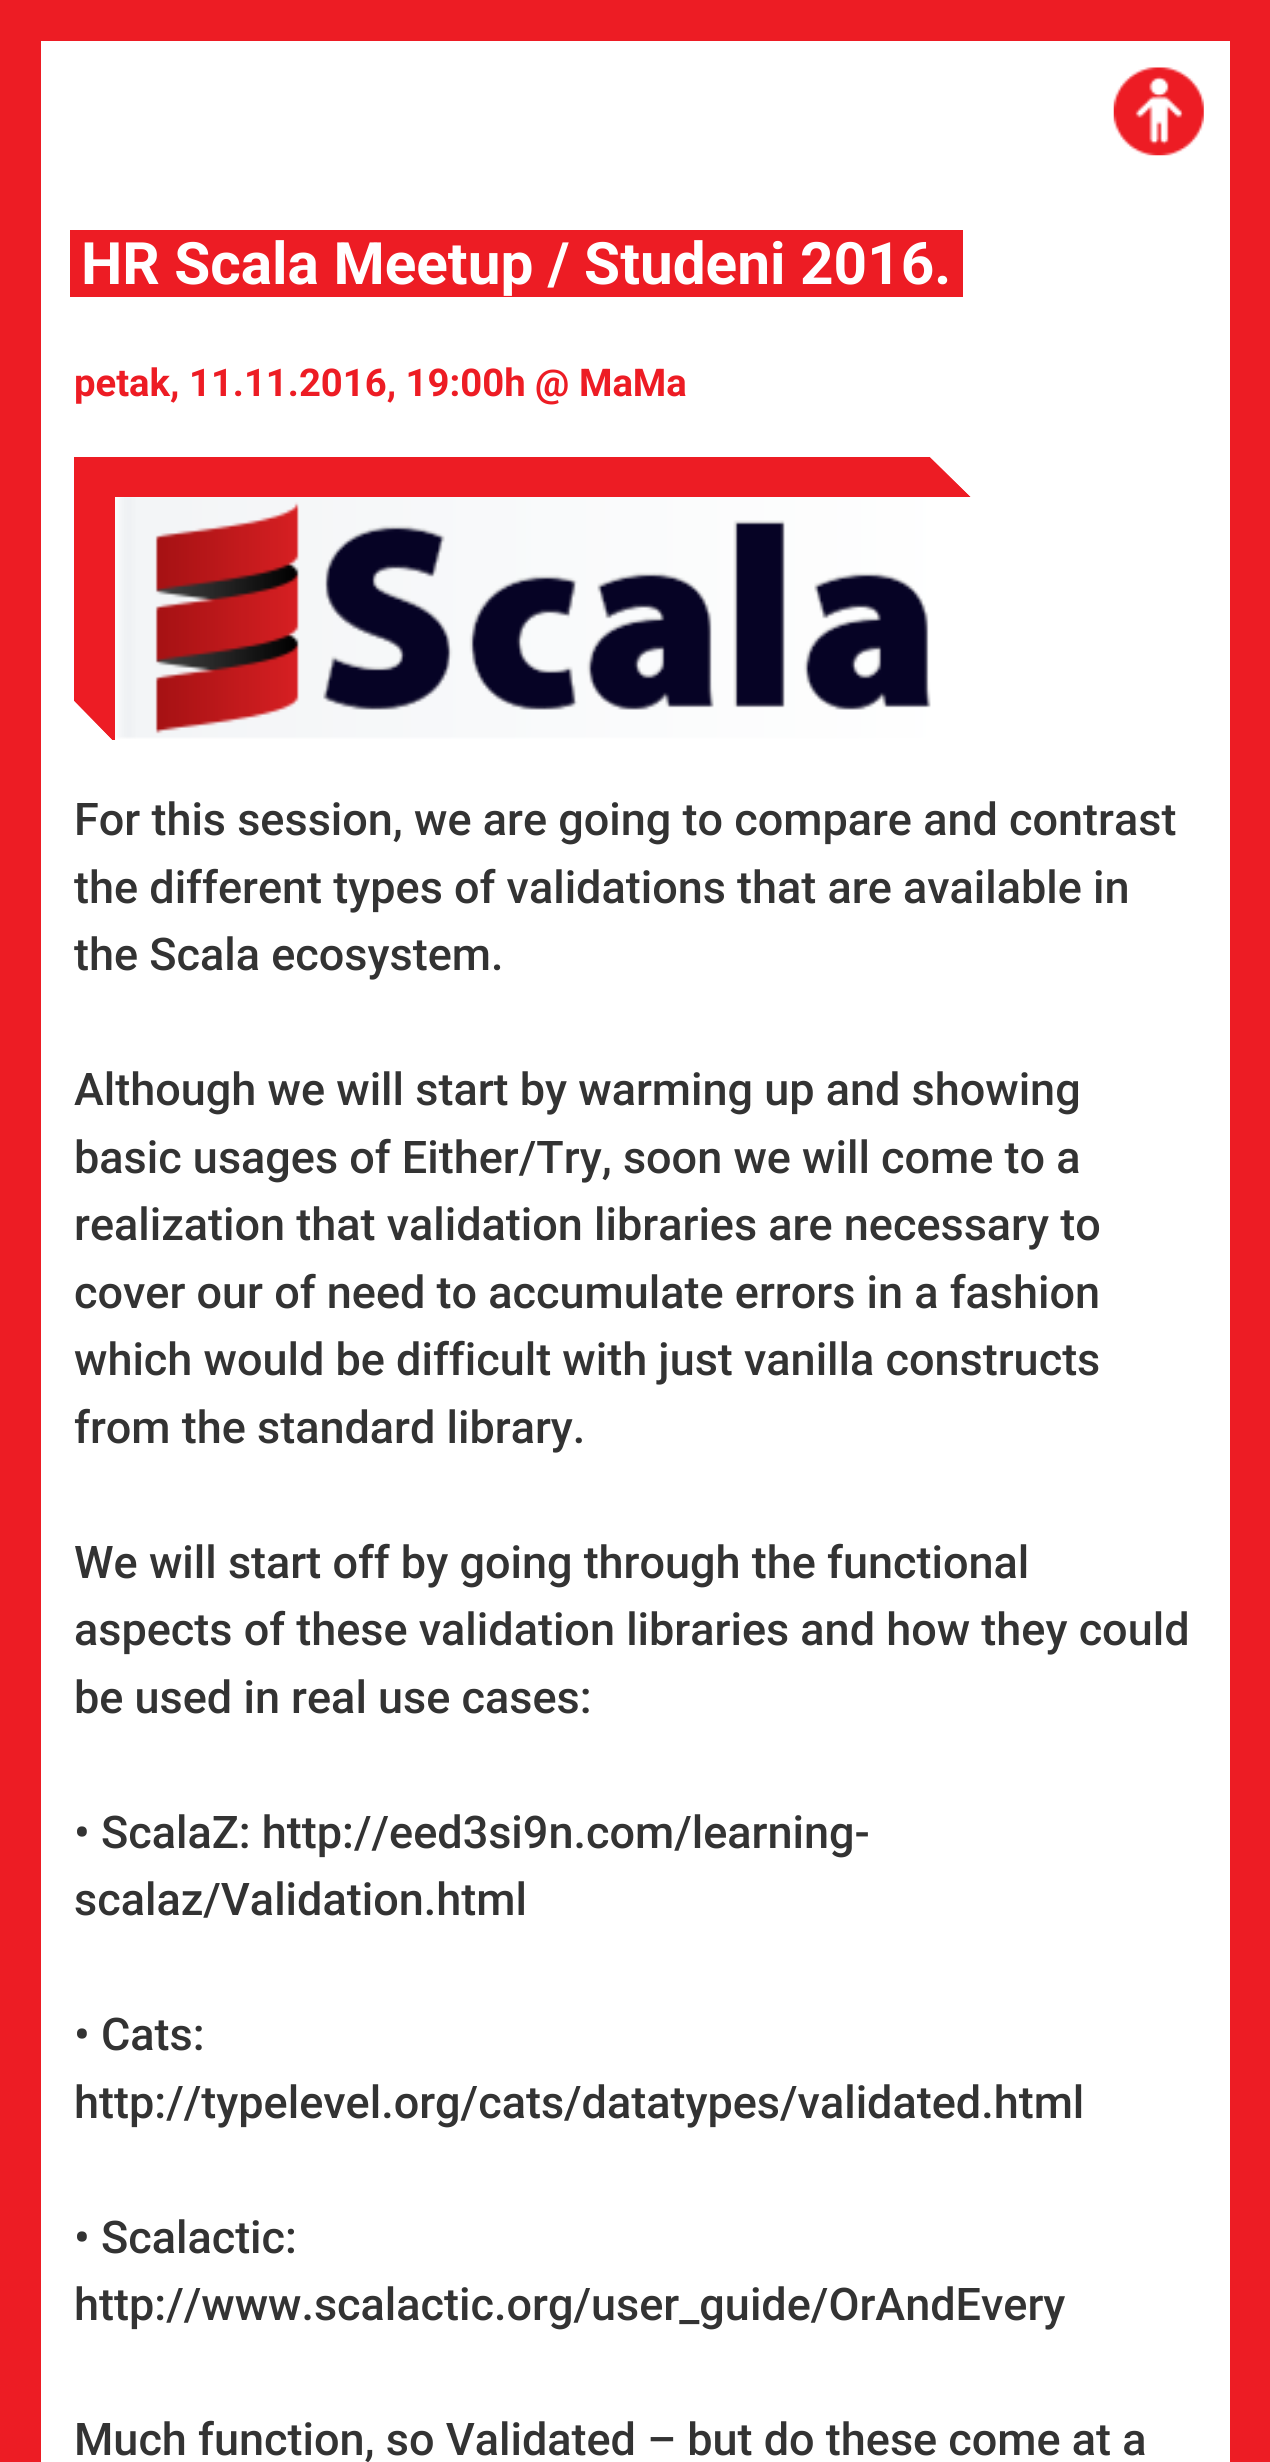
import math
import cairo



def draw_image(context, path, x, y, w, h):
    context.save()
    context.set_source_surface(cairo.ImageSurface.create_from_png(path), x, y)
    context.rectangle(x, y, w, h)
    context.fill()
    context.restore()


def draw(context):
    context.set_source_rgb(1, 1, 1)
    context.paint()
    context.rectangle(20.5, 20.5, 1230, 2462)
    context.set_source_rgb(237 / 255, 28 / 255, 36 / 255)
    context.set_line_width(41)
    context.stroke()
    draw_image(context, "images/1.png", 1113, 67, 91, 89)
    context.rectangle(70, 230, 11, 67)
    context.fill()
    context.rectangle(81, 230, 882, 67)
    context.fill()
    context.rectangle(115, 457, 856, 40)
    context.fill()
    context.rectangle(74, 457, 41, 283)
    context.fill()
    draw_image(context, "images/2.png", 115, 497, 816, 242)
    context.set_source_rgb(1, 1, 1)
    context.new_path()
    context.move_to(953, 432)
    context.line_to(1001, 480)
    context.line_to(977, 503)
    context.line_to(929, 456)
    context.close_path()
    context.fill()
    context.new_path()
    context.move_to(977, 503)
    context.line_to(929, 456)
    context.line_to(977, 456)
    context.close_path()
    context.fill()
    context.new_path()
    context.move_to(92, 765)
    context.line_to(50, 721)
    context.line_to(72, 699)
    context.line_to(115, 743)
    context.close_path()
    context.fill()
    context.new_path()
    context.move_to(72, 699)
    context.line_to(115, 743)
    context.line_to(75, 747)
    context.close_path()
    context.fill()
    context.select_font_face("Roboto", cairo.FontSlant.NORMAL, cairo.FontWeight.BOLD)
    context.set_font_size(58.5)
    context.move_to(81, 284)
    context.show_text("HR Scala Meetup / Studeni 2016.")
    context.set_font_size(38.25)
    context.set_source_rgb(237 / 255, 28 / 255, 36 / 255)
    context.move_to(74, 396)
    context.show_text("petak, 11.11.2016, 19:00h @ MaMa")
    context.select_font_face("Roboto Medium")
    context.set_font_size(45)
    context.set_source_rgb(51 / 255, 51 / 255, 51 / 255)
    context.move_to(74, 835)
    context.show_text("For this session, we are going to compare and contrast")
    context.move_to(74, 903)
    context.show_text("the different types of validations that are available in")
    context.move_to(74, 970)
    context.show_text("the Scala ecosystem.")
    context.move_to(74, 1105)
    context.show_text("Although we will start by warming up and showing")
    context.move_to(74, 1173)
    context.show_text("basic usages of Either/Try, soon we will come to a")
    context.move_to(74, 1240)
    context.show_text("realization that validation libraries are necessary to")
    context.move_to(74, 1308)
    context.show_text("cover our of need to accumulate errors in a fashion")
    context.move_to(74, 1375)
    context.show_text("which would be difficult with just vanilla constructs")
    context.move_to(74, 1443)
    context.show_text("from the standard library.")
    context.move_to(74, 1578)
    context.show_text("We will start off by going through the functional")
    context.move_to(74, 1645)
    context.show_text("aspects of these validation libraries and how they could")
    context.move_to(74, 1713)
    context.show_text("be used in real use cases:")
    context.move_to(74, 1848)
    context.show_text("• ScalaZ: http://eed3si9n.com/learning-")
    context.move_to(74, 1915)
    context.show_text("scalaz/Validation.html")
    context.move_to(74, 2050)
    context.show_text("• Cats:")
    context.move_to(74, 2118)
    context.show_text("http://typelevel.org/cats/datatypes/validated.html")
    context.move_to(74, 2253)
    context.show_text("• Scalactic:")
    context.move_to(74, 2320)
    context.show_text("http://www.scalactic.org/user_guide/OrAndEvery")
    context.move_to(74, 2455)
    context.show_text("Much function, so Validated – but do these come at a")


surface = cairo.ImageSurface(cairo.Format.RGB24, 1270, 2462)
context = cairo.Context(surface)
options = cairo.FontOptions()
options.set_hint_metrics(cairo.HintMetrics.OFF)
options.set_hint_style(cairo.HintStyle.NONE)
context.set_font_options(options)
context.set_miter_limit(4)
draw(context)
surface.write_to_png("out.png")
